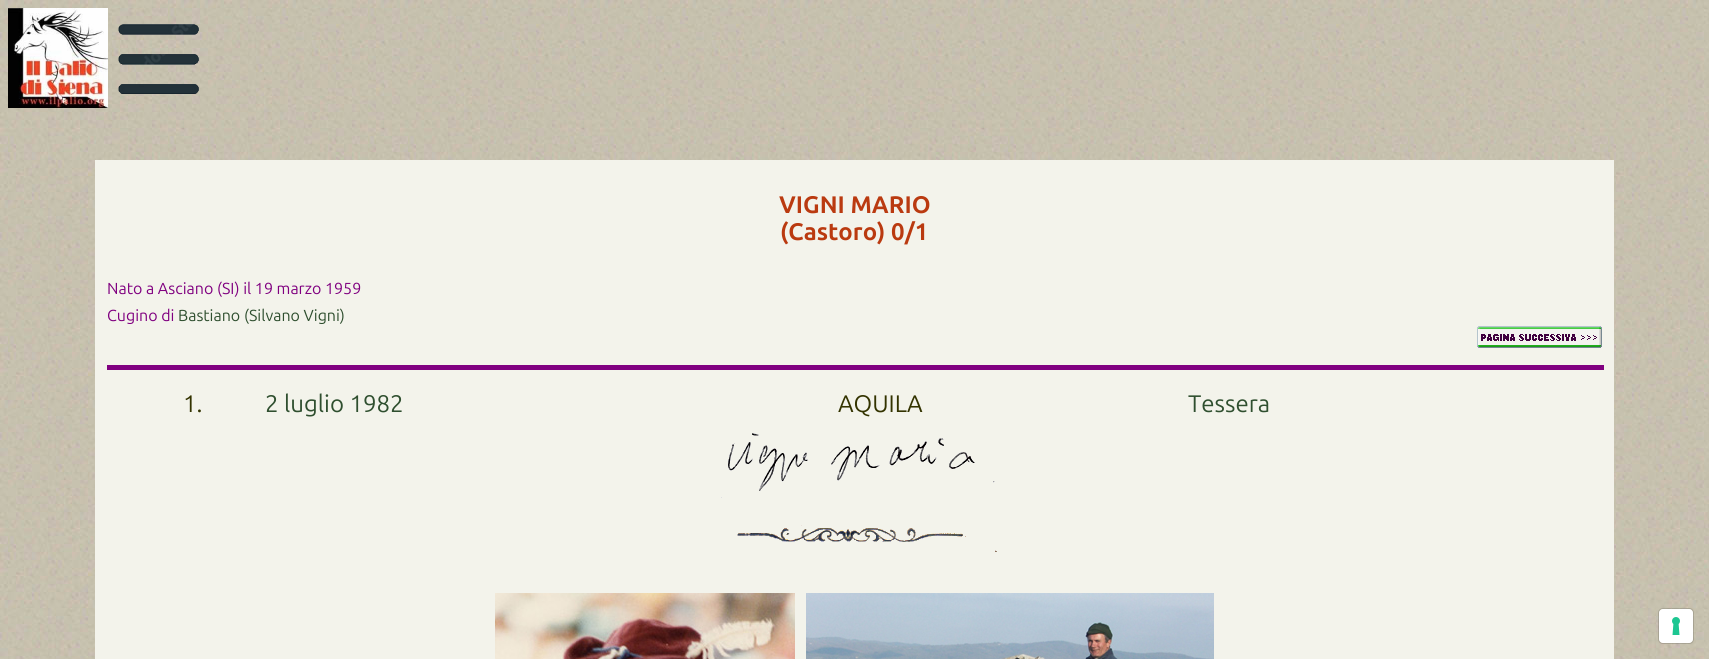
import math
import cairo



def rounded_rect(context, x, y, w, h, r):
    context.new_sub_path()
    for i, (u, v) in enumerate([(x + w - r, y + h - r), (x + r, y + h - r), (x + r, y + r), (x + w - r, y + r)]):
        context.arc(u, v, r, i * math.pi / 2, (i + 1) * math.pi / 2)
    context.close_path()


def draw_image(context, path, x, y, w, h):
    context.save()
    context.set_source_surface(cairo.ImageSurface.create_from_png(path), x, y)
    context.rectangle(x, y, w, h)
    context.fill()
    context.restore()


def draw(context):
    context.set_source_rgb(1, 1, 1)
    context.paint()
    draw_image(context, "images/1.png", 0, 0, 1709, 659)
    draw_image(context, "images/2.png", 8, 8, 100, 100)
    draw_image(context, "images/3.png", 118, 24, 81, 70)
    context.set_source_rgb(243 / 255, 243 / 255, 235 / 255)
    context.rectangle(95, 160, 1519, 499)
    context.fill()
    draw_image(context, "images/4.png", 1477, 326, 125, 22)
    context.set_source_rgb(128 / 255, 0, 128 / 255)
    context.rectangle(107, 365, 1497, 5)
    context.fill()
    draw_image(context, "images/5.png", 721, 433, 274, 65)
    draw_image(context, "images/6.png", 737, 525, 260, 27)
    draw_image(context, "images/7.png", 495, 593, 300, 66)
    draw_image(context, "images/8.png", 806, 593, 408, 66)
    rounded_rect(context, 1658.5, 608.5, 35, 35, 4.5)
    context.set_source_rgba(0, 0, 0, 0.15)
    context.set_line_width(1)
    context.stroke()
    context.set_source_rgb(1, 1, 1)
    rounded_rect(context, 1659, 609, 34, 34, 4)
    context.fill()
    draw_image(context, "images/9.png", 1672, 617, 8, 18)
    context.select_font_face("Ubuntu", cairo.FontSlant.NORMAL, cairo.FontWeight.BOLD)
    context.set_font_size(24)
    context.set_source_rgb(186 / 255, 58 / 255, 16 / 255)
    context.move_to(779, 213)
    context.show_text("VIGNI MARIO")
    context.move_to(780, 240)
    context.show_text("(Castoro) 0/1")
    context.select_font_face("Ubuntu")
    context.set_font_size(16)
    context.set_source_rgb(128 / 255, 0, 128 / 255)
    context.move_to(107, 294)
    context.show_text("Nato a Asciano (SI) il 19 marzo 1959")
    context.move_to(107, 321)
    context.show_text("Cugino di")
    context.set_source_rgb(47 / 255, 79 / 255, 47 / 255)
    context.move_to(178, 321)
    context.show_text("Bastiano (Silvano Vigni)")
    context.set_font_size(24)
    context.set_source_rgb(51 / 255, 51 / 255, 0)
    context.move_to(183, 412)
    context.show_text("1.")
    context.set_source_rgb(47 / 255, 79 / 255, 47 / 255)
    context.move_to(265, 412)
    context.show_text("2 luglio 1982")
    context.set_source_rgb(51 / 255, 51 / 255, 0)
    context.move_to(838, 412)
    context.show_text("AQUILA")
    context.set_source_rgb(47 / 255, 79 / 255, 47 / 255)
    context.move_to(1188, 412)
    context.show_text("Tessera")


surface = cairo.ImageSurface(cairo.Format.RGB24, 1709, 659)
context = cairo.Context(surface)
options = cairo.FontOptions()
options.set_hint_metrics(cairo.HintMetrics.OFF)
options.set_hint_style(cairo.HintStyle.NONE)
context.set_font_options(options)
context.set_miter_limit(4)
draw(context)
surface.write_to_png("out.png")
